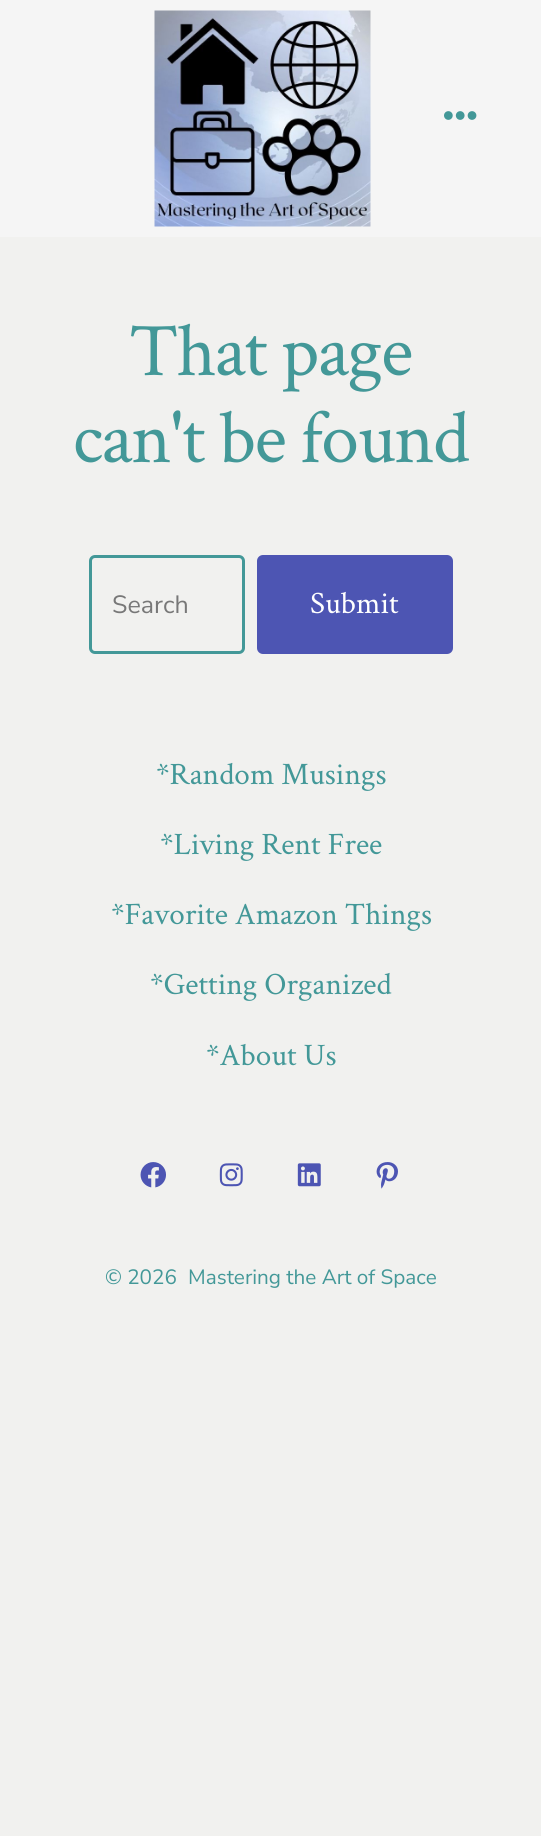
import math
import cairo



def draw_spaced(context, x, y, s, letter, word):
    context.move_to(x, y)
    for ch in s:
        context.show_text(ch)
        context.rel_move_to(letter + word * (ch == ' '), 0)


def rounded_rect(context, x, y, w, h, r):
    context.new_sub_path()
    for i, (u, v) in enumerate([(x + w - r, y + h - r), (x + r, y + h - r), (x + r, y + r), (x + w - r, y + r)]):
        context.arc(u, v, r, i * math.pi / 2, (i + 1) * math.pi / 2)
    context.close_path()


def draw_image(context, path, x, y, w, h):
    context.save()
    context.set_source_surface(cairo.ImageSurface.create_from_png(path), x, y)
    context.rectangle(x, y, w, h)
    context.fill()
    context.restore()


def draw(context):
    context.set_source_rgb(241 / 255, 241 / 255, 239 / 255)
    context.paint()
    context.set_source_rgb(245 / 255, 245 / 255, 245 / 255)
    context.rectangle(0, 0, 541, 237)
    context.fill()
    draw_image(context, "images/1.png", 154, 10, 217, 217)
    draw_image(context, "images/2.png", 444, 111, 33, 9)
    rounded_rect(context, 90.5, 556.5, 153, 96, 4.5)
    context.set_source_rgb(67 / 255, 152 / 255, 152 / 255)
    context.set_line_width(3)
    context.stroke()
    context.set_source_rgb(77 / 255, 85 / 255, 179 / 255)
    rounded_rect(context, 257, 555, 196, 99, 6)
    context.fill()
    draw_image(context, "images/3.png", 140, 1162, 26, 26)
    draw_image(context, "images/4.png", 219, 1163, 24, 24)
    draw_image(context, "images/5.png", 297, 1163, 24, 24)
    draw_image(context, "images/6.png", 376, 1162, 22, 27)
    context.select_font_face("Crimson Text")
    context.set_font_size(75.75)
    context.set_source_rgb(67 / 255, 152 / 255, 152 / 255)
    draw_spaced(context, 129, 375, "That page", -1.5, 0)
    draw_spaced(context, 73, 462, "can't be found", -1.5, 0)
    context.select_font_face("Nunito Sans")
    context.set_font_size(25)
    context.set_source_rgb(120 / 255, 120 / 255, 120 / 255)
    context.move_to(112, 613)
    context.show_text("Search")
    context.select_font_face("Crimson Text")
    context.set_font_size(31.25)
    context.set_source_rgb(1, 1, 1)
    context.move_to(310, 613)
    context.show_text("Submit")
    context.set_source_rgb(67 / 255, 152 / 255, 152 / 255)
    context.move_to(156, 784)
    context.show_text("*Random Musings")
    context.move_to(160, 854)
    context.show_text("*Living Rent Free")
    context.move_to(111, 924)
    context.show_text("*Favorite Amazon Things")
    context.move_to(150, 994)
    context.show_text("*Getting Organized")
    context.move_to(206, 1065)
    context.show_text("*About Us")
    context.select_font_face("Nunito Sans")
    context.set_font_size(20.7)
    context.move_to(105, 1284)
    context.show_text("© 2026")
    context.move_to(188, 1284)
    context.show_text("Mastering the Art of Space")


surface = cairo.ImageSurface(cairo.Format.RGB24, 541, 1836)
context = cairo.Context(surface)
options = cairo.FontOptions()
options.set_hint_metrics(cairo.HintMetrics.OFF)
options.set_hint_style(cairo.HintStyle.NONE)
context.set_font_options(options)
context.set_miter_limit(4)
draw(context)
surface.write_to_png("out.png")
